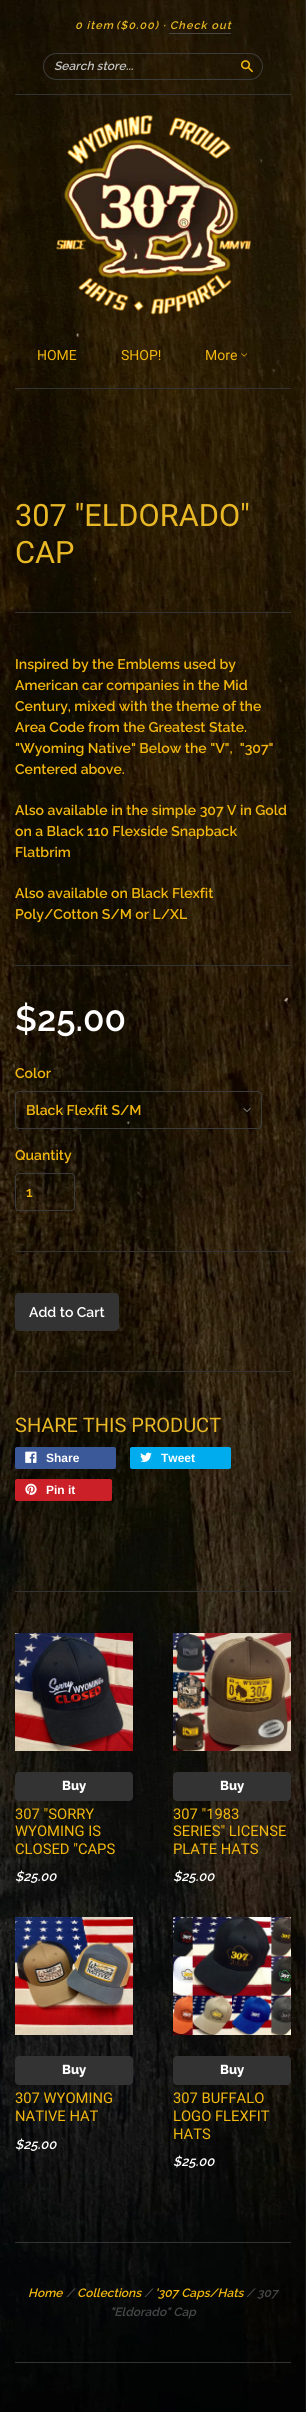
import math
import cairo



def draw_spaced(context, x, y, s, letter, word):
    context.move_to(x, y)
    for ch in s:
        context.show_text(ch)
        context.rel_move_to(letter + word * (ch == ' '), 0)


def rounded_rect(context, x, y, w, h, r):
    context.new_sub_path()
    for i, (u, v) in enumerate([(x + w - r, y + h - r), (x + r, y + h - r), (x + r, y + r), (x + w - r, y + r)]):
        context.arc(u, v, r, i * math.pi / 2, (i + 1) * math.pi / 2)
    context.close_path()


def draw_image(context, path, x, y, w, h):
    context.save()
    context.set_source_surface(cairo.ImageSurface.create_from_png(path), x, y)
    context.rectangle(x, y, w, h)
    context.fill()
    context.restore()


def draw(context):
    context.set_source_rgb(1, 1, 1)
    context.paint()
    draw_image(context, "images/1.png", 0, 0, 306, 2412)
    context.set_source_rgb(51 / 255, 51 / 255, 51 / 255)
    context.rectangle(15, 388, 276, 1)
    context.fill()
    context.rectangle(15, 94, 276, 1)
    context.fill()
    context.set_source_rgb(71 / 255, 71 / 255, 71 / 255)
    context.rectangle(169, 33, 62, 1)
    context.fill()
    rounded_rect(context, 43.5, 53.5, 219, 26, 13)
    context.set_source_rgb(59 / 255, 59 / 255, 59 / 255)
    context.set_line_width(1)
    context.stroke()
    draw_image(context, "images/2.png", 241, 60, 12, 13)
    draw_image(context, "images/3.png", 56, 115, 195, 200)
    draw_image(context, "images/4.png", 241, 353, 7, 4)
    context.set_source_rgb(51 / 255, 51 / 255, 51 / 255)
    context.rectangle(15, 612, 276, 1)
    context.fill()
    context.rectangle(15, 965, 276, 1)
    context.fill()
    draw_image(context, "images/5.png", 243, 1108, 8, 4)
    rounded_rect(context, 15.5, 1091.5, 246, 37, 3.5)
    context.set_source_rgb(59 / 255, 59 / 255, 59 / 255)
    context.stroke()
    rounded_rect(context, 15.5, 1173.5, 59, 37, 3.5)
    context.stroke()
    context.set_source_rgb(51 / 255, 51 / 255, 51 / 255)
    context.rectangle(15, 1251, 276, 1)
    context.fill()
    rounded_rect(context, 15, 1293, 104, 38, 4)
    context.fill()
    context.rectangle(15, 1371, 276, 1)
    context.fill()
    context.set_source_rgb(59 / 255, 89 / 255, 152 / 255)
    rounded_rect(context, 15, 1447, 101, 22, 2)
    context.fill()
    draw_image(context, "images/6.png", 25, 1451, 12, 12)
    context.set_source_rgb(0, 172 / 255, 237 / 255)
    rounded_rect(context, 130, 1447, 101, 22, 2)
    context.fill()
    draw_image(context, "images/7.png", 140, 1452, 12, 10)
    context.set_source_rgb(203 / 255, 32 / 255, 39 / 255)
    rounded_rect(context, 15, 1479, 97, 22, 2)
    context.fill()
    draw_image(context, "images/8.png", 25, 1483, 12, 12)
    context.set_source_rgb(51 / 255, 51 / 255, 51 / 255)
    context.rectangle(15, 1591, 276, 1)
    context.fill()
    draw_image(context, "images/9.png", 15, 1633, 118, 118)
    rounded_rect(context, 15, 1772, 118, 29, 4)
    context.fill()
    draw_image(context, "images/10.png", 173, 1633, 118, 118)
    rounded_rect(context, 173, 1772, 118, 29, 4)
    context.fill()
    draw_image(context, "images/11.png", 15, 1917, 118, 118)
    rounded_rect(context, 15, 2056, 118, 29, 4)
    context.fill()
    draw_image(context, "images/12.png", 173, 1917, 118, 118)
    rounded_rect(context, 173, 2056, 118, 29, 4)
    context.fill()
    context.rectangle(15, 2242, 276, 1)
    context.fill()
    context.rectangle(15, 2362, 276, 1)
    context.fill()
    context.select_font_face("Raleway SemiBold", cairo.FontSlant.ITALIC)
    context.set_font_size(11)
    context.set_source_rgb(232 / 255, 184 / 255, 38 / 255)
    draw_spaced(context, 75, 29, "0 item", 1, 0)
    draw_spaced(context, 116, 29, "($0.00) · Check out", 1, 0)
    context.set_font_size(12)
    context.set_source_rgb(194 / 255, 194 / 255, 194 / 255)
    context.move_to(54, 70)
    context.show_text("Search store...")
    context.select_font_face("Roboto")
    context.set_font_size(14)
    context.set_source_rgb(242 / 255, 183 / 255, 15 / 255)
    context.move_to(37, 360)
    context.show_text("HOME")
    context.move_to(121, 360)
    context.show_text("SHOP!")
    context.move_to(205, 360)
    context.show_text("More")
    context.set_font_size(30.75)
    context.set_source_rgb(232 / 255, 184 / 255, 38 / 255)
    context.move_to(15, 526)
    context.show_text("307 \"ELDORADO\"")
    context.move_to(15, 563)
    context.show_text("CAP")
    context.select_font_face("Raleway SemiBold")
    context.set_font_size(14)
    context.set_source_rgb(242 / 255, 183 / 255, 15 / 255)
    context.move_to(15, 669)
    context.show_text("Inspired by the Emblems used by")
    context.move_to(15, 690)
    context.show_text("American car companies in the Mid")
    context.move_to(15, 711)
    context.show_text("Century, mixed with the theme of the")
    context.move_to(15, 732)
    context.show_text("Area Code from the Greatest State.")
    context.move_to(15, 753)
    context.show_text("\"Wyoming Native\" Below the \"V\",  \"307\"")
    context.move_to(15, 774)
    context.show_text("Centered above.")
    context.move_to(15, 815)
    context.show_text("Also available in the simple 307 V in Gold")
    context.move_to(15, 836)
    context.show_text("on a Black 110 Flexside Snapback")
    context.move_to(15, 857)
    context.show_text("Flatbrim")
    context.move_to(15, 898)
    context.show_text("Also available on Black Flexfit")
    context.move_to(15, 919)
    context.show_text("Poly/Cotton S/M or L/XL")
    context.set_font_size(35)
    context.set_source_rgb(1, 1, 1)
    context.move_to(15, 1031)
    context.show_text("$25.00")
    context.set_font_size(14)
    context.set_source_rgb(242 / 255, 183 / 255, 15 / 255)
    context.move_to(15, 1078)
    context.show_text("Color")
    context.move_to(26, 1115)
    context.show_text("Black Flexfit S/M")
    context.move_to(15, 1160)
    context.show_text("Quantity")
    context.move_to(26, 1197)
    context.show_text("1")
    context.set_source_rgb(1, 1, 1)
    context.move_to(29, 1317)
    context.show_text("Add to Cart")
    context.select_font_face("Roboto")
    context.set_font_size(20)
    context.set_source_rgb(232 / 255, 184 / 255, 38 / 255)
    context.move_to(15, 1432)
    context.show_text("SHARE THIS PRODUCT")
    context.select_font_face("Liberation Sans", cairo.FontSlant.NORMAL, cairo.FontWeight.BOLD)
    context.set_font_size(12)
    context.set_source_rgb(1, 1, 1)
    context.move_to(46, 1462)
    context.show_text("Share")
    context.move_to(161, 1462)
    context.show_text("Tweet")
    context.move_to(46, 1494)
    context.show_text("Pin it")
    context.select_font_face("Raleway ExtraBold")
    context.set_font_size(13)
    context.move_to(62, 1790)
    context.show_text("Buy")
    context.select_font_face("Roboto")
    context.set_font_size(14.75)
    context.set_source_rgb(242 / 255, 183 / 255, 15 / 255)
    context.move_to(15, 1819)
    context.show_text("307 \"SORRY")
    context.move_to(15, 1836)
    context.show_text("WYOMING IS")
    context.move_to(15, 1854)
    context.show_text("CLOSED \"CAPS")
    context.select_font_face("Raleway SemiBold", cairo.FontSlant.ITALIC)
    context.set_font_size(13)
    context.set_source_rgb(1, 1, 1)
    context.move_to(15, 1881)
    context.show_text("$25.00")
    context.select_font_face("Raleway ExtraBold")
    context.move_to(220, 1790)
    context.show_text("Buy")
    context.select_font_face("Roboto")
    context.set_font_size(14.75)
    context.set_source_rgb(242 / 255, 183 / 255, 15 / 255)
    context.move_to(173, 1819)
    context.show_text("307 \"1983")
    context.move_to(173, 1836)
    context.show_text("SERIES\" LICENSE")
    context.move_to(173, 1854)
    context.show_text("PLATE HATS")
    context.select_font_face("Raleway SemiBold", cairo.FontSlant.ITALIC)
    context.set_font_size(13)
    context.set_source_rgb(1, 1, 1)
    context.move_to(173, 1881)
    context.show_text("$25.00")
    context.select_font_face("Raleway ExtraBold")
    context.move_to(62, 2074)
    context.show_text("Buy")
    context.select_font_face("Roboto")
    context.set_font_size(14.75)
    context.set_source_rgb(242 / 255, 183 / 255, 15 / 255)
    context.move_to(15, 2103)
    context.show_text("307 WYOMING")
    context.move_to(15, 2121)
    context.show_text("NATIVE HAT")
    context.select_font_face("Raleway SemiBold", cairo.FontSlant.ITALIC)
    context.set_font_size(13)
    context.set_source_rgb(1, 1, 1)
    context.move_to(15, 2149)
    context.show_text("$25.00")
    context.select_font_face("Raleway ExtraBold")
    context.move_to(220, 2074)
    context.show_text("Buy")
    context.select_font_face("Roboto")
    context.set_font_size(14.75)
    context.set_source_rgb(242 / 255, 183 / 255, 15 / 255)
    context.move_to(173, 2103)
    context.show_text("307 BUFFALO")
    context.move_to(173, 2121)
    context.show_text("LOGO FLEXFIT")
    context.move_to(173, 2139)
    context.show_text("HATS")
    context.select_font_face("Raleway SemiBold", cairo.FontSlant.ITALIC)
    context.set_font_size(13)
    context.set_source_rgb(1, 1, 1)
    context.move_to(173, 2166)
    context.show_text("$25.00")
    context.set_font_size(12)
    context.set_source_rgb(242 / 255, 183 / 255, 15 / 255)
    context.move_to(28, 2297)
    context.show_text("Home")
    context.set_source_rgb(71 / 255, 71 / 255, 71 / 255)
    context.move_to(66, 2297)
    context.show_text("/")
    context.set_source_rgb(242 / 255, 183 / 255, 15 / 255)
    context.move_to(77, 2297)
    context.show_text("Collections")
    context.set_source_rgb(71 / 255, 71 / 255, 71 / 255)
    context.move_to(144, 2297)
    context.show_text("/")
    context.set_source_rgb(242 / 255, 183 / 255, 15 / 255)
    context.move_to(155, 2297)
    context.show_text("'307 Caps/Hats")
    context.set_source_rgb(71 / 255, 71 / 255, 71 / 255)
    context.move_to(246, 2297)
    context.show_text("/ 307")
    context.move_to(110, 2316)
    context.show_text("\"Eldorado\" Cap")


surface = cairo.ImageSurface(cairo.Format.RGB24, 306, 2412)
context = cairo.Context(surface)
options = cairo.FontOptions()
options.set_hint_metrics(cairo.HintMetrics.OFF)
options.set_hint_style(cairo.HintStyle.NONE)
context.set_font_options(options)
context.set_miter_limit(4)
draw(context)
surface.write_to_png("out.png")
